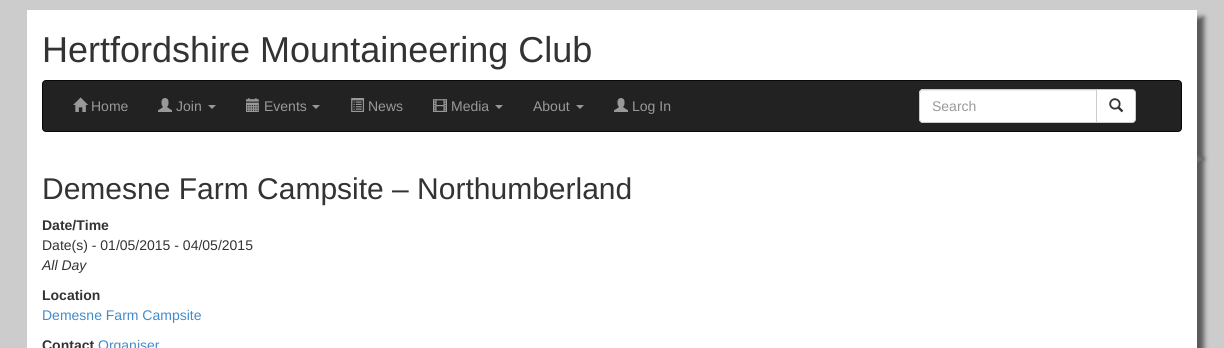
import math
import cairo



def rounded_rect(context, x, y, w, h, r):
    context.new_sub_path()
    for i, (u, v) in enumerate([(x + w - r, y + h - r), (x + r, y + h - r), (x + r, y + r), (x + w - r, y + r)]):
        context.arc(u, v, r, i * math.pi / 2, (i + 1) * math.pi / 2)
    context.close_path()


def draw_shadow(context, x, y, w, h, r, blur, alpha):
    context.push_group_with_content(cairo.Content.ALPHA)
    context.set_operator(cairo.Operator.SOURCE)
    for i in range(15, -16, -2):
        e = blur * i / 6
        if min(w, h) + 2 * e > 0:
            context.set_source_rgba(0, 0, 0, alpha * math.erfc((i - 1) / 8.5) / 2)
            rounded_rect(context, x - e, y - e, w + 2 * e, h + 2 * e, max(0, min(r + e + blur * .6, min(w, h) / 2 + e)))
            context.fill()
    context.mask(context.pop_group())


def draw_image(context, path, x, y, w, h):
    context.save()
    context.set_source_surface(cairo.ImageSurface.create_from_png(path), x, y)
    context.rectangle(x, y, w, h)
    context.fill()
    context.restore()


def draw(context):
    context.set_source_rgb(204 / 255, 204 / 255, 204 / 255)
    context.paint()
    context.set_source_rgb(50 / 255, 50 / 255, 50 / 255)
    draw_shadow(context, 34, 17, 1170, 142, 0, 2.5, 0.75)
    context.set_source_rgb(1, 1, 1)
    context.rectangle(27, 10, 1170, 142)
    context.fill()
    context.set_source_rgb(34 / 255, 34 / 255, 34 / 255)
    rounded_rect(context, 42.5, 80.5, 1139, 51, 3.5)
    context.fill_preserve()
    context.set_source_rgb(8 / 255, 8 / 255, 8 / 255)
    context.set_line_width(1)
    context.stroke()
    draw_image(context, "images/1.png", 73, 97, 15, 15)
    draw_image(context, "images/2.png", 158, 98, 14, 14)
    context.set_source_rgb(153 / 255, 153 / 255, 153 / 255)
    context.new_path()
    context.move_to(208, 105)
    context.line_to(216, 105)
    context.line_to(212, 109)
    context.close_path()
    context.fill()
    draw_image(context, "images/3.png", 246, 98, 13, 14)
    context.new_path()
    context.move_to(312, 105)
    context.line_to(320, 105)
    context.line_to(316, 109)
    context.close_path()
    context.fill()
    draw_image(context, "images/4.png", 351, 98, 13, 14)
    draw_image(context, "images/5.png", 433, 99, 14, 13)
    context.new_path()
    context.move_to(495, 105)
    context.line_to(503, 105)
    context.line_to(499, 109)
    context.close_path()
    context.fill()
    context.new_path()
    context.move_to(576, 105)
    context.line_to(584, 105)
    context.line_to(580, 109)
    context.close_path()
    context.fill()
    draw_image(context, "images/2.png", 614, 98, 14, 14)
    context.set_source_rgb(1, 1, 1)
    context.new_path()
    context.move_to(1096.5, 89.5)
    context.line_to(1132, 89.5)
    context.curve_to(1134, 89.5, 1135.5, 91, 1135.5, 93)
    context.line_to(1135.5, 119)
    context.curve_to(1135.5, 121, 1134, 122.5, 1132, 122.5)
    context.line_to(1096.5, 122.5)
    context.close_path()
    context.fill_preserve()
    context.set_source_rgb(204 / 255, 204 / 255, 204 / 255)
    context.stroke()
    context.set_source_rgb(1, 1, 1)
    context.new_path()
    context.move_to(923, 89)
    context.line_to(1097, 89)
    context.line_to(1097, 123)
    context.line_to(923, 123)
    context.curve_to(921, 123, 919, 121, 919, 119)
    context.line_to(919, 93)
    context.curve_to(919, 91, 921, 89, 923, 89)
    context.close_path()
    context.fill()
    context.set_source_rgb(236 / 255, 236 / 255, 236 / 255)
    context.new_path()
    context.move_to(923, 91)
    context.line_to(1096, 91)
    context.line_to(1096, 90)
    context.line_to(922, 90)
    context.curve_to(920, 91, 920, 92, 920, 94)
    context.curve_to(920, 92, 921, 91, 923, 91)
    context.close_path()
    context.fill()
    context.new_path()
    context.move_to(923, 89.5)
    context.line_to(1096.5, 89.5)
    context.line_to(1096.5, 122.5)
    context.line_to(923, 122.5)
    context.curve_to(921, 122.5, 919.5, 121, 919.5, 119)
    context.line_to(919.5, 93)
    context.curve_to(919.5, 91, 921, 89.5, 923, 89.5)
    context.close_path()
    context.set_source_rgb(204 / 255, 204 / 255, 204 / 255)
    context.stroke()
    draw_image(context, "images/6.png", 1109, 98, 15, 15)
    context.set_source_rgb(50 / 255, 50 / 255, 50 / 255)
    draw_shadow(context, 34, 159, 1170, 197, 0, 2.5, 0.75)
    context.set_source_rgb(1, 1, 1)
    context.rectangle(27, 152, 1170, 196)
    context.fill()
    context.select_font_face("Liberation Sans")
    context.set_font_size(36)
    context.set_source_rgb(51 / 255, 51 / 255, 51 / 255)
    context.move_to(42, 62)
    context.show_text("Hertfordshire Mountaineering Club")
    context.set_font_size(14)
    context.set_source_rgb(153 / 255, 153 / 255, 153 / 255)
    context.move_to(91, 111)
    context.show_text("Home")
    context.move_to(176, 111)
    context.show_text("Join")
    context.move_to(264, 111)
    context.show_text("Events")
    context.move_to(368, 111)
    context.show_text("News")
    context.move_to(451, 111)
    context.show_text("Media")
    context.move_to(533, 111)
    context.show_text("About")
    context.move_to(632, 111)
    context.show_text("Log In")
    context.move_to(932, 111)
    context.show_text("Search")
    context.set_font_size(30)
    context.set_source_rgb(51 / 255, 51 / 255, 51 / 255)
    context.move_to(42, 199)
    context.show_text("Demesne Farm Campsite – Northumberland")
    context.select_font_face("Liberation Sans", cairo.FontSlant.NORMAL, cairo.FontWeight.BOLD)
    context.set_font_size(14)
    context.move_to(42, 230)
    context.show_text("Date/Time")
    context.select_font_face("Liberation Sans")
    context.move_to(42, 250)
    context.show_text("Date(s) - 01/05/2015 - 04/05/2015")
    context.select_font_face("Liberation Sans", cairo.FontSlant.ITALIC)
    context.move_to(42, 270)
    context.show_text("All Day")
    context.select_font_face("Liberation Sans", cairo.FontSlant.NORMAL, cairo.FontWeight.BOLD)
    context.move_to(42, 300)
    context.show_text("Location")
    context.select_font_face("Liberation Sans")
    context.set_source_rgb(66 / 255, 139 / 255, 202 / 255)
    context.move_to(42, 320)
    context.show_text("Demesne Farm Campsite")
    context.select_font_face("Liberation Sans", cairo.FontSlant.NORMAL, cairo.FontWeight.BOLD)
    context.set_source_rgb(51 / 255, 51 / 255, 51 / 255)
    context.move_to(42, 350)
    context.show_text("Contact")
    context.select_font_face("Liberation Sans")
    context.set_source_rgb(66 / 255, 139 / 255, 202 / 255)
    context.move_to(98, 350)
    context.show_text("Organiser")


surface = cairo.ImageSurface(cairo.Format.RGB24, 1224, 348)
context = cairo.Context(surface)
options = cairo.FontOptions()
options.set_hint_metrics(cairo.HintMetrics.OFF)
options.set_hint_style(cairo.HintStyle.NONE)
context.set_font_options(options)
context.set_miter_limit(4)
draw(context)
surface.write_to_png("out.png")
